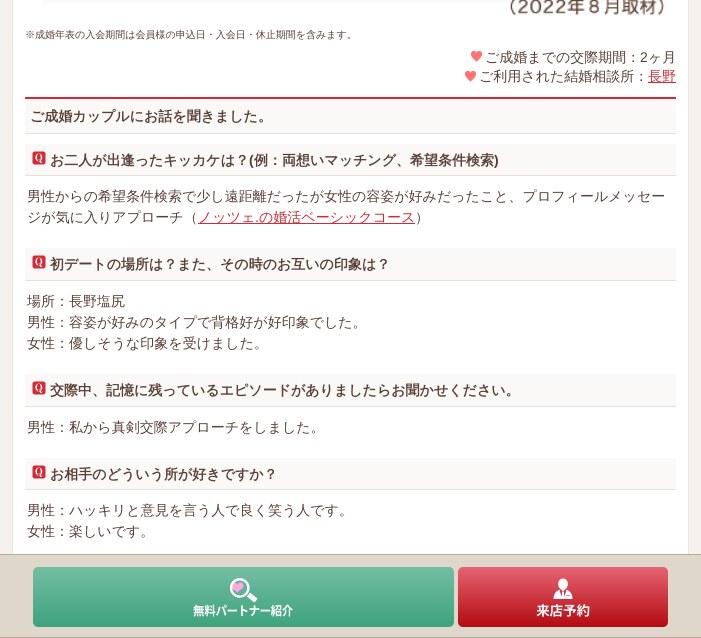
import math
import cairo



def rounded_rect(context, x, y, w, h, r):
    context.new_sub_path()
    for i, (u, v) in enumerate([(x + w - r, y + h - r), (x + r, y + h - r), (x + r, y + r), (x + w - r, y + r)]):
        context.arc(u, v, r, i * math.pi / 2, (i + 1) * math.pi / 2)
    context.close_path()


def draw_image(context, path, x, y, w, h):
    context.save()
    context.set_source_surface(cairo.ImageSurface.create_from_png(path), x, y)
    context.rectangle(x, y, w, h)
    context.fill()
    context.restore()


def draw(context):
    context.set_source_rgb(245 / 255, 241 / 255, 236 / 255)
    context.paint()
    context.set_source_rgb(1, 1, 1)
    context.rectangle(13, 0, 675, 554)
    context.fill()
    context.rectangle(12.5, -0.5, 676, 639)
    context.set_source_rgb(236 / 255, 230 / 255, 224 / 255)
    context.set_line_width(1)
    context.stroke()
    draw_image(context, "images/1.png", 42, 0, 623, 16)
    draw_image(context, "images/2.png", 471, 51, 11, 11)
    draw_image(context, "images/2.png", 465, 71, 11, 11)
    context.set_source_rgb(210 / 255, 42 / 255, 55 / 255)
    context.rectangle(648, 82, 28, 1)
    context.fill()
    context.set_source_rgb(251 / 255, 249 / 255, 247 / 255)
    context.rectangle(25, 99, 651, 34)
    context.fill()
    context.set_source_rgb(210 / 255, 42 / 255, 55 / 255)
    context.rectangle(25, 97, 651, 2)
    context.fill()
    context.set_source_rgb(232 / 255, 225 / 255, 218 / 255)
    context.rectangle(25, 133, 651, 1)
    context.fill()
    context.set_source_rgb(251 / 255, 249 / 255, 247 / 255)
    context.rectangle(25, 144, 651, 31)
    context.fill()
    draw_image(context, "images/3.png", 32, 151, 14, 14)
    context.set_source_rgb(232 / 255, 225 / 255, 218 / 255)
    context.rectangle(25, 175, 651, 1)
    context.fill()
    context.set_source_rgb(210 / 255, 42 / 255, 55 / 255)
    context.rectangle(198, 223, 217, 1)
    context.fill()
    context.set_source_rgb(251 / 255, 249 / 255, 247 / 255)
    context.rectangle(25, 248, 651, 32)
    context.fill()
    draw_image(context, "images/3.png", 32, 255, 14, 14)
    context.set_source_rgb(232 / 255, 225 / 255, 218 / 255)
    context.rectangle(25, 280, 651, 1)
    context.fill()
    context.set_source_rgb(251 / 255, 249 / 255, 247 / 255)
    context.rectangle(25, 374, 651, 32)
    context.fill()
    draw_image(context, "images/3.png", 32, 381, 14, 14)
    context.set_source_rgb(232 / 255, 225 / 255, 218 / 255)
    context.rectangle(25, 406, 651, 1)
    context.fill()
    context.set_source_rgb(251 / 255, 249 / 255, 247 / 255)
    context.rectangle(25, 458, 651, 31)
    context.fill()
    draw_image(context, "images/3.png", 32, 465, 14, 14)
    context.set_source_rgb(232 / 255, 225 / 255, 218 / 255)
    context.rectangle(25, 489, 651, 1)
    context.fill()
    context.set_source_rgb(223 / 255, 215 / 255, 204 / 255)
    context.rectangle(0, 555, 701, 82)
    context.fill()
    context.set_source_rgb(188 / 255, 169 / 255, 148 / 255)
    context.rectangle(0, 554, 701, 1)
    context.fill()
    context.rectangle(0, 637, 701, 1)
    context.fill()
    gradient = cairo.LinearGradient(244, 567, 244, 627)
    gradient.add_color_stop_rgba(0, 115 / 255, 190 / 255, 162 / 255, 1)
    gradient.add_color_stop_rgba(0.97, 63 / 255, 163 / 255, 126 / 255, 1)
    context.set_source(gradient)
    rounded_rect(context, 33, 567, 421, 60, 5)
    context.fill()
    draw_image(context, "images/4.png", 193, 578, 100, 39)
    gradient = cairo.LinearGradient(563, 567, 563, 627)
    gradient.add_color_stop_rgba(0, 230 / 255, 99 / 255, 115 / 255, 1)
    gradient.add_color_stop_rgba(0.97, 180 / 255, 14 / 255, 20 / 255, 1)
    context.set_source(gradient)
    rounded_rect(context, 458, 567, 210, 60, 5)
    context.fill()
    draw_image(context, "images/5.png", 536, 578, 54, 39)
    context.select_font_face("WenQuanYi Zen Hei Medium")
    context.set_font_size(10)
    context.set_source_rgb(89 / 255, 63 / 255, 53 / 255)
    context.move_to(25, 38)
    context.show_text("※成婚年表の入会期間は会員様の申込日・入会日・休止期間を含みます。")
    context.set_font_size(14)
    context.move_to(485, 62)
    context.show_text("ご成婚までの交際期間：")
    context.select_font_face("Liberation Sans")
    context.move_to(640, 62)
    context.show_text("2")
    context.select_font_face("WenQuanYi Zen Hei Medium")
    context.move_to(648, 62)
    context.show_text("ヶ月")
    context.move_to(479, 81)
    context.show_text("ご利用された結婚相談所：")
    context.set_source_rgb(210 / 255, 42 / 255, 55 / 255)
    context.move_to(648, 81)
    context.show_text("長野")
    context.select_font_face("WenQuanYi Zen Hei", cairo.FontSlant.NORMAL, cairo.FontWeight.BOLD)
    context.set_source_rgb(89 / 255, 63 / 255, 53 / 255)
    context.move_to(30, 121)
    context.show_text("ご成婚カップルにお話を聞きました。")
    context.move_to(50, 165)
    context.show_text("お二人が出逢ったキッカケは？")
    context.select_font_face("Liberation Sans", cairo.FontSlant.NORMAL, cairo.FontWeight.BOLD)
    context.move_to(249, 165)
    context.show_text("(")
    context.select_font_face("WenQuanYi Zen Hei", cairo.FontSlant.NORMAL, cairo.FontWeight.BOLD)
    context.move_to(254, 165)
    context.show_text("例：両想いマッチング、希望条件検索")
    context.select_font_face("Liberation Sans", cairo.FontSlant.NORMAL, cairo.FontWeight.BOLD)
    context.move_to(494, 165)
    context.show_text(")")
    context.select_font_face("WenQuanYi Zen Hei Medium")
    context.move_to(27, 201)
    context.show_text("男性からの希望条件検索で少し遠距離だったが女性の容姿が好みだったこと、プロフィールメッセー")
    context.move_to(27, 222)
    context.show_text("ジが気に入りアプローチ（")
    context.set_source_rgb(210 / 255, 42 / 255, 55 / 255)
    context.move_to(198, 222)
    context.show_text("ノッツェ")
    context.select_font_face("Liberation Sans")
    context.move_to(255, 222)
    context.show_text(".")
    context.select_font_face("WenQuanYi Zen Hei Medium")
    context.move_to(259, 222)
    context.show_text("の婚活ベーシックコース")
    context.set_source_rgb(89 / 255, 63 / 255, 53 / 255)
    context.move_to(415, 222)
    context.show_text("）")
    context.select_font_face("WenQuanYi Zen Hei", cairo.FontSlant.NORMAL, cairo.FontWeight.BOLD)
    context.move_to(50, 269)
    context.show_text("初デートの場所は？また、その時のお互いの印象は？")
    context.select_font_face("WenQuanYi Zen Hei Medium")
    context.move_to(27, 306)
    context.show_text("場所：長野塩尻")
    context.move_to(27, 327)
    context.show_text("男性：容姿が好みのタイプで背格好が好印象でした。")
    context.move_to(27, 348)
    context.show_text("女性：優しそうな印象を受けました。")
    context.select_font_face("WenQuanYi Zen Hei", cairo.FontSlant.NORMAL, cairo.FontWeight.BOLD)
    context.move_to(50, 395)
    context.show_text("交際中、記憶に残っているエピソードがありましたらお聞かせください。")
    context.select_font_face("WenQuanYi Zen Hei Medium")
    context.move_to(27, 432)
    context.show_text("男性：私から真剣交際アプローチをしました。")
    context.select_font_face("WenQuanYi Zen Hei", cairo.FontSlant.NORMAL, cairo.FontWeight.BOLD)
    context.move_to(50, 479)
    context.show_text("お相手のどういう所が好きですか？")
    context.select_font_face("WenQuanYi Zen Hei Medium")
    context.move_to(27, 515)
    context.show_text("男性：ハッキリと意見を言う人で良く笑う人です。")
    context.move_to(27, 536)
    context.show_text("女性：楽しいです。")


surface = cairo.ImageSurface(cairo.Format.RGB24, 701, 638)
context = cairo.Context(surface)
options = cairo.FontOptions()
options.set_hint_metrics(cairo.HintMetrics.OFF)
options.set_hint_style(cairo.HintStyle.NONE)
context.set_font_options(options)
context.set_miter_limit(4)
draw(context)
surface.write_to_png("out.png")
